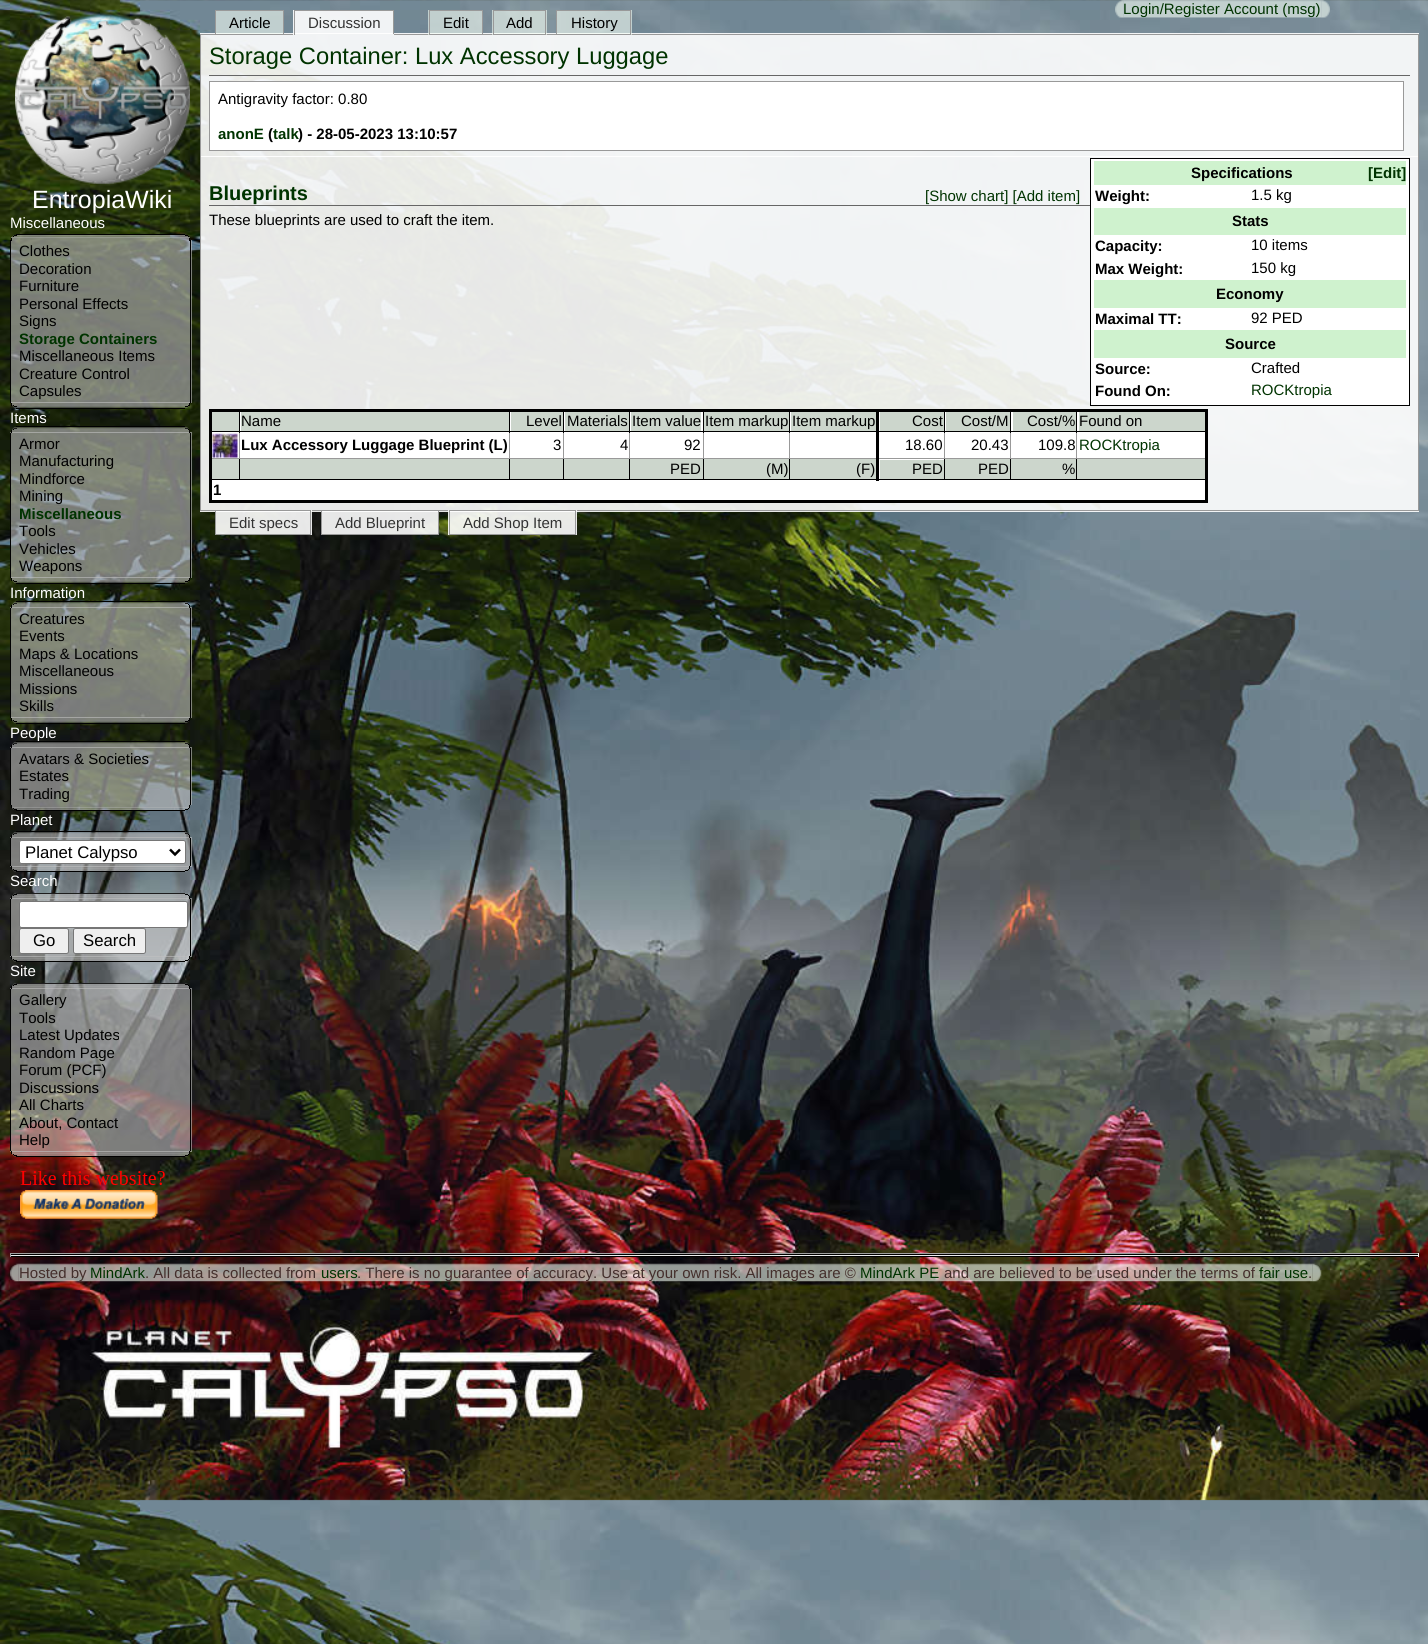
import math
import cairo



def rounded_rect(context, x, y, w, h, r):
    context.new_sub_path()
    for i, (u, v) in enumerate([(x + w - r, y + h - r), (x + r, y + h - r), (x + r, y + r), (x + w - r, y + r)]):
        context.arc(u, v, r, i * math.pi / 2, (i + 1) * math.pi / 2)
    context.close_path()


def draw_image(context, path, x, y, w, h):
    context.save()
    context.set_source_surface(cairo.ImageSurface.create_from_png(path), x, y)
    context.rectangle(x, y, w, h)
    context.fill()
    context.restore()


def draw(context):
    context.set_source_rgb(1, 1, 1)
    context.paint()
    draw_image(context, "images/1.png", 0, 0, 1428, 1644)
    draw_image(context, "images/2.png", 15, 12, 175, 172)
    context.set_source_rgb(0, 0, 0)
    context.rectangle(16, 234, 169, 1)
    context.fill()
    draw_image(context, "images/3.png", 13, 235, 175, 2)
    context.rectangle(185, 235, 3, 1)
    context.fill()
    context.rectangle(14, 235, 3, 1)
    context.fill()
    draw_image(context, "images/4.png", 12, 236, 177, 2)
    context.rectangle(188, 236, 1, 1)
    context.fill()
    context.rectangle(13, 236, 1, 1)
    context.fill()
    context.set_source_rgba(191 / 255, 191 / 255, 191 / 255, 0.6)
    context.rectangle(11, 237, 179, 3)
    context.fill()
    context.rectangle(11, 240, 181, 163)
    context.fill()
    context.set_source_rgb(0, 0, 0)
    context.rectangle(189, 238, 1, 3)
    context.fill()
    context.rectangle(11, 238, 1, 3)
    context.fill()
    context.rectangle(190, 240, 1, 163)
    context.fill()
    context.rectangle(10, 240, 1, 163)
    context.fill()
    context.set_source_rgba(191 / 255, 191 / 255, 191 / 255, 0.6)
    context.rectangle(11, 402, 179, 3)
    context.fill()
    context.set_source_rgb(0, 0, 0)
    context.rectangle(189, 403, 1, 3)
    context.fill()
    context.rectangle(11, 403, 1, 3)
    context.fill()
    draw_image(context, "images/5.png", 12, 405, 177, 2)
    context.rectangle(188, 405, 1, 1)
    context.fill()
    context.rectangle(13, 405, 1, 1)
    context.fill()
    draw_image(context, "images/6.png", 13, 406, 175, 2)
    context.rectangle(185, 406, 3, 1)
    context.fill()
    context.rectangle(14, 406, 3, 1)
    context.fill()
    context.rectangle(16, 408, 169, 1)
    context.fill()
    context.rectangle(16, 426, 169, 1)
    context.fill()
    draw_image(context, "images/7.png", 13, 427, 175, 2)
    context.rectangle(185, 428, 3, 1)
    context.fill()
    context.rectangle(14, 428, 3, 1)
    context.fill()
    draw_image(context, "images/8.png", 12, 428, 177, 2)
    context.rectangle(188, 429, 1, 1)
    context.fill()
    context.rectangle(13, 429, 1, 1)
    context.fill()
    context.set_source_rgba(191 / 255, 191 / 255, 191 / 255, 0.6)
    context.rectangle(10, 432, 182, 146)
    context.fill()
    context.rectangle(11, 430, 179, 3)
    context.fill()
    context.set_source_rgb(0, 0, 0)
    context.rectangle(189, 430, 1, 3)
    context.fill()
    context.rectangle(11, 430, 1, 3)
    context.fill()
    context.rectangle(190, 433, 1, 145)
    context.fill()
    context.rectangle(10, 433, 1, 145)
    context.fill()
    context.set_source_rgba(191 / 255, 191 / 255, 191 / 255, 0.6)
    context.rectangle(11, 577, 179, 3)
    context.fill()
    context.set_source_rgb(0, 0, 0)
    context.rectangle(189, 578, 1, 3)
    context.fill()
    context.rectangle(11, 578, 1, 3)
    context.fill()
    draw_image(context, "images/9.png", 12, 580, 177, 2)
    context.rectangle(188, 580, 1, 1)
    context.fill()
    context.rectangle(13, 580, 1, 1)
    context.fill()
    draw_image(context, "images/10.png", 13, 581, 175, 2)
    context.rectangle(185, 581, 3, 1)
    context.fill()
    context.rectangle(14, 581, 3, 1)
    context.fill()
    context.rectangle(16, 583, 169, 1)
    context.fill()
    context.rectangle(16, 601, 169, 1)
    context.fill()
    draw_image(context, "images/11.png", 13, 602, 175, 2)
    context.rectangle(185, 603, 3, 1)
    context.fill()
    context.rectangle(14, 603, 3, 1)
    context.fill()
    draw_image(context, "images/12.png", 12, 603, 177, 2)
    context.rectangle(188, 604, 1, 1)
    context.fill()
    context.rectangle(13, 604, 1, 1)
    context.fill()
    context.set_source_rgba(191 / 255, 191 / 255, 191 / 255, 0.6)
    context.rectangle(10, 607, 182, 111)
    context.fill()
    context.rectangle(11, 605, 179, 3)
    context.fill()
    context.set_source_rgb(0, 0, 0)
    context.rectangle(189, 605, 1, 3)
    context.fill()
    context.rectangle(11, 605, 1, 3)
    context.fill()
    context.rectangle(190, 608, 1, 110)
    context.fill()
    context.rectangle(10, 608, 1, 110)
    context.fill()
    context.set_source_rgba(191 / 255, 191 / 255, 191 / 255, 0.6)
    context.rectangle(11, 717, 179, 3)
    context.fill()
    context.set_source_rgb(0, 0, 0)
    context.rectangle(189, 718, 1, 3)
    context.fill()
    context.rectangle(11, 718, 1, 3)
    context.fill()
    draw_image(context, "images/13.png", 12, 720, 177, 2)
    context.rectangle(188, 720, 1, 1)
    context.fill()
    context.rectangle(13, 720, 1, 1)
    context.fill()
    draw_image(context, "images/14.png", 13, 721, 175, 2)
    context.rectangle(185, 721, 3, 1)
    context.fill()
    context.rectangle(14, 721, 3, 1)
    context.fill()
    context.rectangle(16, 723, 169, 1)
    context.fill()
    draw_image(context, "images/15.png", 13, 742, 175, 2)
    context.rectangle(185, 743, 3, 1)
    context.fill()
    context.rectangle(14, 743, 3, 1)
    context.fill()
    draw_image(context, "images/16.png", 12, 743, 177, 2)
    context.rectangle(188, 744, 1, 1)
    context.fill()
    context.rectangle(13, 744, 1, 1)
    context.fill()
    context.set_source_rgba(191 / 255, 191 / 255, 191 / 255, 0.6)
    context.rectangle(10, 747, 182, 58)
    context.fill()
    context.rectangle(11, 745, 179, 3)
    context.fill()
    context.set_source_rgb(0, 0, 0)
    context.rectangle(189, 745, 1, 3)
    context.fill()
    context.rectangle(11, 745, 1, 3)
    context.fill()
    context.rectangle(190, 748, 1, 57)
    context.fill()
    context.rectangle(10, 748, 1, 57)
    context.fill()
    context.set_source_rgba(191 / 255, 191 / 255, 191 / 255, 0.6)
    context.rectangle(11, 805, 179, 3)
    context.fill()
    context.set_source_rgb(0, 0, 0)
    context.rectangle(189, 805, 1, 3)
    context.fill()
    context.rectangle(11, 805, 1, 3)
    context.fill()
    draw_image(context, "images/17.png", 12, 807, 177, 2)
    context.rectangle(188, 808, 1, 1)
    context.fill()
    context.rectangle(13, 808, 1, 1)
    context.fill()
    draw_image(context, "images/18.png", 13, 808, 175, 2)
    context.rectangle(185, 809, 3, 1)
    context.fill()
    context.rectangle(14, 809, 3, 1)
    context.fill()
    context.rectangle(16, 810, 169, 1)
    context.fill()
    context.rectangle(16, 831, 169, 1)
    context.fill()
    draw_image(context, "images/19.png", 13, 832, 175, 2)
    context.rectangle(185, 833, 3, 1)
    context.fill()
    context.rectangle(14, 833, 3, 1)
    context.fill()
    draw_image(context, "images/20.png", 12, 833, 177, 2)
    context.rectangle(188, 834, 1, 1)
    context.fill()
    context.rectangle(13, 834, 1, 1)
    context.fill()
    context.set_source_rgba(191 / 255, 191 / 255, 191 / 255, 0.6)
    context.rectangle(10, 837, 182, 30)
    context.fill()
    context.rectangle(11, 835, 179, 3)
    context.fill()
    context.set_source_rgb(0, 0, 0)
    context.rectangle(189, 835, 1, 3)
    context.fill()
    context.rectangle(11, 835, 1, 3)
    context.fill()
    context.rectangle(190, 838, 1, 28)
    context.fill()
    context.rectangle(10, 838, 1, 28)
    context.fill()
    context.set_source_rgb(1, 1, 1)
    rounded_rect(context, 19.5, 840.5, 166, 23, 2)
    context.fill_preserve()
    context.set_source_rgb(118 / 255, 118 / 255, 118 / 255)
    context.set_line_width(1)
    context.stroke()
    context.new_path()
    context.move_to(170, 849.5)
    context.line_to(175, 854.5)
    context.line_to(180, 849.5)
    context.set_source_rgb(0, 0, 0)
    context.set_line_width(2.5)
    context.stroke()
    context.set_source_rgba(191 / 255, 191 / 255, 191 / 255, 0.6)
    context.rectangle(11, 866, 179, 3)
    context.fill()
    context.set_source_rgb(0, 0, 0)
    context.rectangle(189, 866, 1, 3)
    context.fill()
    context.rectangle(11, 866, 1, 3)
    context.fill()
    draw_image(context, "images/21.png", 12, 868, 177, 2)
    context.rectangle(188, 869, 1, 1)
    context.fill()
    context.rectangle(13, 869, 1, 1)
    context.fill()
    draw_image(context, "images/22.png", 13, 870, 175, 2)
    context.rectangle(185, 870, 3, 1)
    context.fill()
    context.rectangle(14, 870, 3, 1)
    context.fill()
    context.rectangle(16, 871, 169, 1)
    context.fill()
    context.rectangle(16, 893, 169, 1)
    context.fill()
    draw_image(context, "images/23.png", 13, 893, 175, 2)
    context.rectangle(185, 894, 3, 1)
    context.fill()
    context.rectangle(14, 894, 3, 1)
    context.fill()
    draw_image(context, "images/24.png", 12, 895, 177, 2)
    context.rectangle(188, 895, 1, 1)
    context.fill()
    context.rectangle(13, 895, 1, 1)
    context.fill()
    context.set_source_rgba(191 / 255, 191 / 255, 191 / 255, 0.6)
    context.rectangle(10, 898, 182, 59)
    context.fill()
    context.rectangle(11, 896, 179, 3)
    context.fill()
    context.set_source_rgb(0, 0, 0)
    context.rectangle(189, 896, 1, 3)
    context.fill()
    context.rectangle(11, 896, 1, 3)
    context.fill()
    context.rectangle(190, 899, 1, 57)
    context.fill()
    context.rectangle(10, 899, 1, 57)
    context.fill()
    context.set_source_rgb(1, 1, 1)
    rounded_rect(context, 19.5, 901.5, 168, 26, 2)
    context.fill_preserve()
    context.set_source_rgb(118 / 255, 118 / 255, 118 / 255)
    context.set_line_width(1)
    context.stroke()
    context.set_source_rgb(239 / 255, 239 / 255, 239 / 255)
    rounded_rect(context, 19.5, 928.5, 49, 25, 2)
    context.fill_preserve()
    context.set_source_rgb(118 / 255, 118 / 255, 118 / 255)
    context.stroke()
    context.set_source_rgb(239 / 255, 239 / 255, 239 / 255)
    rounded_rect(context, 73.5, 928.5, 72, 25, 2)
    context.fill_preserve()
    context.set_source_rgb(118 / 255, 118 / 255, 118 / 255)
    context.stroke()
    context.set_source_rgba(191 / 255, 191 / 255, 191 / 255, 0.6)
    context.rectangle(11, 956, 179, 3)
    context.fill()
    context.set_source_rgb(0, 0, 0)
    context.rectangle(189, 956, 1, 3)
    context.fill()
    context.rectangle(11, 956, 1, 3)
    context.fill()
    draw_image(context, "images/25.png", 12, 958, 177, 2)
    context.rectangle(188, 959, 1, 1)
    context.fill()
    context.rectangle(13, 959, 1, 1)
    context.fill()
    draw_image(context, "images/26.png", 13, 960, 175, 2)
    context.rectangle(185, 960, 3, 1)
    context.fill()
    context.rectangle(14, 960, 3, 1)
    context.fill()
    context.rectangle(16, 961, 169, 1)
    context.fill()
    context.rectangle(16, 983, 169, 1)
    context.fill()
    draw_image(context, "images/27.png", 13, 983, 175, 2)
    context.rectangle(185, 984, 3, 1)
    context.fill()
    context.rectangle(14, 984, 3, 1)
    context.fill()
    draw_image(context, "images/28.png", 12, 985, 177, 2)
    context.rectangle(188, 985, 1, 1)
    context.fill()
    context.rectangle(13, 985, 1, 1)
    context.fill()
    context.set_source_rgba(191 / 255, 191 / 255, 191 / 255, 0.6)
    context.rectangle(10, 988, 182, 164)
    context.fill()
    context.rectangle(11, 986, 179, 3)
    context.fill()
    context.set_source_rgb(0, 0, 0)
    context.rectangle(189, 986, 1, 3)
    context.fill()
    context.rectangle(11, 986, 1, 3)
    context.fill()
    context.rectangle(190, 989, 1, 162)
    context.fill()
    context.rectangle(10, 989, 1, 162)
    context.fill()
    context.set_source_rgba(191 / 255, 191 / 255, 191 / 255, 0.6)
    context.rectangle(11, 1151, 179, 3)
    context.fill()
    context.set_source_rgb(0, 0, 0)
    context.rectangle(189, 1151, 1, 3)
    context.fill()
    context.rectangle(11, 1151, 1, 3)
    context.fill()
    draw_image(context, "images/29.png", 12, 1153, 177, 2)
    context.rectangle(188, 1154, 1, 1)
    context.fill()
    context.rectangle(13, 1154, 1, 1)
    context.fill()
    draw_image(context, "images/30.png", 13, 1155, 175, 2)
    context.rectangle(185, 1155, 3, 1)
    context.fill()
    context.rectangle(14, 1155, 3, 1)
    context.fill()
    context.rectangle(16, 1156, 169, 1)
    context.fill()
    draw_image(context, "images/31.png", 20, 1171, 145, 48)
    draw_image(context, "images/32.png", 1115, 0, 9, 18)
    draw_image(context, "images/33.png", 1123, 0, 199, 18)
    draw_image(context, "images/34.png", 1321, 0, 9, 18)
    context.set_source_rgba(1, 1, 1, 0.9)
    context.rectangle(200, 33, 1219, 124)
    context.fill()
    context.set_source_rgb(153 / 255, 153 / 255, 153 / 255)
    context.rectangle(200, 34, 1219, 1)
    context.fill()
    context.set_source_rgba(245 / 255, 1, 245 / 255, 0.6)
    context.rectangle(215.5, 10.5, 68, 24)
    context.fill_preserve()
    context.set_source_rgb(153 / 255, 153 / 255, 153 / 255)
    context.stroke()
    context.set_source_rgba(1, 1, 1, 0.9)
    context.rectangle(293, 10, 100, 25)
    context.fill()
    context.set_source_rgb(153 / 255, 153 / 255, 153 / 255)
    context.rectangle(294, 10, 100, 1)
    context.fill()
    context.rectangle(393, 10, 1, 25)
    context.fill()
    context.set_source_rgb(241 / 255, 243 / 255, 244 / 255)
    context.rectangle(294, 34, 100, 1)
    context.fill()
    context.set_source_rgb(153 / 255, 153 / 255, 153 / 255)
    context.rectangle(294, 10, 1, 25)
    context.fill()
    context.set_source_rgba(245 / 255, 1, 245 / 255, 0.6)
    context.rectangle(428, 10, 54, 25)
    context.fill()
    context.rectangle(429.5, 10.5, 53, 24)
    context.set_source_rgb(153 / 255, 153 / 255, 153 / 255)
    context.stroke()
    context.set_source_rgba(245 / 255, 1, 245 / 255, 0.6)
    context.rectangle(492, 10, 55, 25)
    context.fill()
    context.rectangle(493.5, 10.5, 52, 24)
    context.set_source_rgb(153 / 255, 153 / 255, 153 / 255)
    context.stroke()
    context.set_source_rgba(245 / 255, 1, 245 / 255, 0.6)
    context.rectangle(557, 10, 75, 25)
    context.fill()
    context.rectangle(556.5, 10.5, 74, 24)
    context.set_source_rgb(153 / 255, 153 / 255, 153 / 255)
    context.stroke()
    context.rectangle(1418, 34, 1, 122)
    context.fill()
    context.rectangle(200, 34, 1, 122)
    context.fill()
    context.set_source_rgb(102 / 255, 102 / 255, 102 / 255)
    context.rectangle(209, 75, 1201, 1)
    context.fill()
    context.set_source_rgb(1, 1, 1)
    context.rectangle(209.5, 81.5, 1194, 69)
    context.fill_preserve()
    context.set_source_rgb(153 / 255, 153 / 255, 153 / 255)
    context.stroke()
    context.set_source_rgba(1, 1, 1, 0.9)
    context.rectangle(200, 156, 1219, 356)
    context.fill()
    context.set_source_rgb(153 / 255, 153 / 255, 153 / 255)
    context.rectangle(1418, 156, 1, 355)
    context.fill()
    context.rectangle(200, 510, 1219, 1)
    context.fill()
    context.rectangle(200, 156, 1, 355)
    context.fill()
    context.set_source_rgb(102 / 255, 102 / 255, 102 / 255)
    context.rectangle(209, 205, 881, 1)
    context.fill()
    context.set_source_rgb(1, 1, 1)
    context.rectangle(212, 412, 993, 88)
    context.fill()
    context.set_source_rgb(204 / 255, 214 / 255, 204 / 255)
    context.rectangle(1011, 459, 194, 20)
    context.fill()
    context.set_source_rgb(0, 0, 0)
    context.rectangle(210, 479, 998, 1)
    context.fill()
    context.rectangle(1076, 458, 1, 22)
    context.fill()
    context.set_source_rgb(153 / 255, 153 / 255, 153 / 255)
    context.rectangle(1076, 458, 132, 1)
    context.fill()
    context.rectangle(1076, 431, 1, 28)
    context.fill()
    context.set_source_rgb(0, 0, 0)
    context.rectangle(1076, 431, 132, 1)
    context.fill()
    context.rectangle(1076, 410, 1, 23)
    context.fill()
    context.rectangle(1010, 458, 1, 22)
    context.fill()
    context.set_source_rgb(153 / 255, 153 / 255, 153 / 255)
    context.rectangle(1010, 458, 68, 1)
    context.fill()
    context.rectangle(1010, 431, 1, 28)
    context.fill()
    context.set_source_rgb(0, 0, 0)
    context.rectangle(1010, 431, 68, 1)
    context.fill()
    context.rectangle(1010, 410, 1, 23)
    context.fill()
    context.rectangle(944, 458, 1, 22)
    context.fill()
    context.set_source_rgb(153 / 255, 153 / 255, 153 / 255)
    context.rectangle(944, 458, 67, 1)
    context.fill()
    context.rectangle(944, 431, 1, 28)
    context.fill()
    context.set_source_rgb(0, 0, 0)
    context.rectangle(944, 431, 67, 1)
    context.fill()
    context.rectangle(944, 410, 1, 23)
    context.fill()
    context.rectangle(789, 458, 1, 22)
    context.fill()
    context.set_source_rgb(153 / 255, 153 / 255, 153 / 255)
    context.rectangle(789, 458, 156, 1)
    context.fill()
    context.rectangle(789, 431, 1, 28)
    context.fill()
    context.set_source_rgb(0, 0, 0)
    context.rectangle(789, 431, 156, 1)
    context.fill()
    context.rectangle(789, 410, 1, 23)
    context.fill()
    context.rectangle(703, 458, 1, 22)
    context.fill()
    context.set_source_rgb(153 / 255, 153 / 255, 153 / 255)
    context.rectangle(703, 458, 87, 1)
    context.fill()
    context.rectangle(703, 431, 1, 28)
    context.fill()
    context.set_source_rgb(0, 0, 0)
    context.rectangle(703, 431, 87, 1)
    context.fill()
    context.rectangle(703, 410, 1, 23)
    context.fill()
    context.rectangle(629, 458, 1, 22)
    context.fill()
    context.set_source_rgb(153 / 255, 153 / 255, 153 / 255)
    context.rectangle(629, 458, 75, 1)
    context.fill()
    context.rectangle(629, 431, 1, 28)
    context.fill()
    context.set_source_rgb(0, 0, 0)
    context.rectangle(629, 431, 75, 1)
    context.fill()
    context.rectangle(629, 410, 1, 23)
    context.fill()
    context.rectangle(563, 458, 1, 22)
    context.fill()
    context.set_source_rgb(153 / 255, 153 / 255, 153 / 255)
    context.rectangle(563, 458, 67, 1)
    context.fill()
    context.rectangle(563, 431, 1, 28)
    context.fill()
    context.set_source_rgb(0, 0, 0)
    context.rectangle(563, 431, 67, 1)
    context.fill()
    context.rectangle(563, 410, 1, 23)
    context.fill()
    context.rectangle(509, 458, 1, 22)
    context.fill()
    context.set_source_rgb(153 / 255, 153 / 255, 153 / 255)
    context.rectangle(509, 458, 55, 1)
    context.fill()
    context.rectangle(509, 431, 1, 28)
    context.fill()
    context.set_source_rgb(0, 0, 0)
    context.rectangle(509, 431, 55, 1)
    context.fill()
    context.rectangle(509, 410, 1, 23)
    context.fill()
    context.rectangle(239, 458, 1, 22)
    context.fill()
    context.set_source_rgb(153 / 255, 153 / 255, 153 / 255)
    context.rectangle(239, 458, 271, 1)
    context.fill()
    context.rectangle(239, 431, 1, 28)
    context.fill()
    context.set_source_rgb(0, 0, 0)
    context.rectangle(239, 431, 271, 1)
    context.fill()
    context.rectangle(239, 410, 1, 23)
    context.fill()
    context.rectangle(209, 409, 999, 3)
    context.fill()
    context.rectangle(1205, 409, 3, 94)
    context.fill()
    context.rectangle(209, 500, 999, 3)
    context.fill()
    context.rectangle(210, 431, 30, 1)
    context.fill()
    context.set_source_rgb(153 / 255, 153 / 255, 153 / 255)
    context.rectangle(210, 458, 30, 1)
    context.fill()
    context.set_source_rgb(0, 0, 0)
    context.rectangle(209, 409, 3, 94)
    context.fill()
    context.set_source_rgb(204 / 255, 214 / 255, 204 / 255)
    context.rectangle(212, 412, 27, 19)
    context.fill()
    context.rectangle(241, 412, 268, 19)
    context.fill()
    context.rectangle(511, 412, 52, 19)
    context.fill()
    context.rectangle(565, 412, 64, 19)
    context.fill()
    context.rectangle(631, 412, 70, 19)
    context.fill()
    context.rectangle(704, 412, 85, 19)
    context.fill()
    context.rectangle(791, 412, 85, 19)
    context.fill()
    context.rectangle(880, 412, 64, 19)
    context.fill()
    context.rectangle(946, 412, 64, 19)
    context.fill()
    context.rectangle(1013, 412, 63, 19)
    context.fill()
    context.rectangle(1079, 412, 126, 19)
    context.fill()
    draw_image(context, "images/35.png", 212, 433, 26, 25)
    context.rectangle(212, 459, 27, 20)
    context.fill()
    context.rectangle(240, 459, 269, 20)
    context.fill()
    context.rectangle(510, 459, 53, 20)
    context.fill()
    context.rectangle(564, 459, 65, 20)
    context.fill()
    context.rectangle(630, 459, 73, 20)
    context.fill()
    context.rectangle(704, 459, 85, 20)
    context.fill()
    context.rectangle(790, 459, 86, 20)
    context.fill()
    context.rectangle(880, 460, 64, 19)
    context.fill()
    context.set_source_rgb(0, 0, 0)
    context.rectangle(876, 409, 3, 72)
    context.fill()
    context.set_source_rgb(204 / 255, 214 / 255, 204 / 255)
    context.rectangle(945, 459, 65, 20)
    context.fill()
    context.set_source_rgb(1, 1, 1)
    context.rectangle(1090.5, 158.5, 319, 247)
    context.fill_preserve()
    context.set_source_rgb(0, 0, 0)
    context.stroke()
    context.set_source_rgb(207 / 255, 242 / 255, 206 / 255)
    context.rectangle(1094, 161, 312, 24)
    context.fill()
    context.rectangle(1094, 208, 312, 27)
    context.fill()
    context.rectangle(1094, 280, 312, 28)
    context.fill()
    context.rectangle(1094, 330, 312, 28)
    context.fill()
    context.set_source_rgba(1, 1, 1, 0.9)
    context.rectangle(216, 510, 96, 25)
    context.fill()
    context.rectangle(215.5, 510.5, 95, 24)
    context.set_source_rgb(153 / 255, 153 / 255, 153 / 255)
    context.stroke()
    context.set_source_rgba(1, 1, 1, 0.9)
    context.rectangle(321.5, 510.5, 117, 24)
    context.fill_preserve()
    context.set_source_rgb(153 / 255, 153 / 255, 153 / 255)
    context.stroke()
    context.set_source_rgba(1, 1, 1, 0.9)
    context.rectangle(448, 510, 129, 25)
    context.fill()
    context.rectangle(449.5, 510.5, 126, 24)
    context.set_source_rgb(153 / 255, 153 / 255, 153 / 255)
    context.stroke()
    context.set_source_rgb(0, 0, 0)
    context.rectangle(10, 1254, 1409, 3)
    context.fill()
    context.set_source_rgb(159 / 255, 159 / 255, 159 / 255)
    context.rectangle(10, 1253, 1409, 1)
    context.fill()
    context.set_source_rgb(238 / 255, 238 / 255, 238 / 255)
    context.rectangle(1418, 1253, 1, 4)
    context.fill()
    context.rectangle(10, 1255, 1409, 1)
    context.fill()
    context.set_source_rgb(159 / 255, 159 / 255, 159 / 255)
    context.rectangle(10, 1253, 1, 4)
    context.fill()
    draw_image(context, "images/36.png", 10, 1263, 9, 19)
    draw_image(context, "images/37.png", 18, 1263, 1295, 19)
    draw_image(context, "images/38.png", 1312, 1263, 10, 19)
    context.select_font_face("Liberation Sans")
    context.set_font_size(25)
    context.set_source_rgb(1, 1, 1)
    context.move_to(32, 208)
    context.show_text("EntropiaWiki")
    context.set_font_size(15)
    context.move_to(10, 228)
    context.show_text("Miscellaneous")
    context.set_source_rgb(0, 0, 0)
    context.move_to(19, 256)
    context.show_text("Clothes")
    context.move_to(19, 274)
    context.show_text("Decoration")
    context.move_to(19, 291)
    context.show_text("Furniture")
    context.move_to(19, 309)
    context.show_text("Personal Effects")
    context.move_to(19, 326)
    context.show_text("Signs")
    context.select_font_face("Liberation Sans", cairo.FontSlant.NORMAL, cairo.FontWeight.BOLD)
    context.set_source_rgb(0, 51 / 255, 0)
    context.move_to(19, 344)
    context.show_text("Storage Containers")
    context.select_font_face("Liberation Sans")
    context.set_source_rgb(0, 0, 0)
    context.move_to(19, 361)
    context.show_text("Miscellaneous Items")
    context.move_to(19, 379)
    context.show_text("Creature Control")
    context.move_to(19, 396)
    context.show_text("Capsules")
    context.set_source_rgb(1, 1, 1)
    context.move_to(10, 423)
    context.show_text("Items")
    context.set_source_rgb(0, 0, 0)
    context.move_to(19, 449)
    context.show_text("Armor")
    context.move_to(19, 466)
    context.show_text("Manufacturing")
    context.move_to(19, 484)
    context.show_text("Mindforce")
    context.move_to(19, 501)
    context.show_text("Mining")
    context.select_font_face("Liberation Sans", cairo.FontSlant.NORMAL, cairo.FontWeight.BOLD)
    context.set_source_rgb(0, 51 / 255, 0)
    context.move_to(19, 519)
    context.show_text("Miscellaneous")
    context.select_font_face("Liberation Sans")
    context.set_source_rgb(0, 0, 0)
    context.move_to(19, 536)
    context.show_text("Tools")
    context.move_to(19, 554)
    context.show_text("Vehicles")
    context.move_to(19, 571)
    context.show_text("Weapons")
    context.set_source_rgb(1, 1, 1)
    context.move_to(10, 598)
    context.show_text("Information")
    context.set_source_rgb(0, 0, 0)
    context.move_to(19, 624)
    context.show_text("Creatures")
    context.move_to(19, 641)
    context.show_text("Events")
    context.move_to(19, 659)
    context.show_text("Maps & Locations")
    context.move_to(19, 676)
    context.show_text("Miscellaneous")
    context.move_to(19, 694)
    context.show_text("Missions")
    context.move_to(19, 711)
    context.show_text("Skills")
    context.set_source_rgb(1, 1, 1)
    context.move_to(10, 738)
    context.show_text("People")
    context.set_source_rgb(0, 0, 0)
    context.rectangle(16, 741, 169, 1)
    context.fill()
    context.move_to(19, 764)
    context.show_text("Avatars & Societies")
    context.move_to(19, 781)
    context.show_text("Estates")
    context.move_to(19, 799)
    context.show_text("Trading")
    context.set_source_rgb(1, 1, 1)
    context.move_to(10, 825)
    context.show_text("Planet")
    context.set_font_size(16.75)
    context.set_source_rgb(0, 0, 0)
    context.move_to(25, 858)
    context.show_text("Planet Calypso")
    context.set_font_size(15)
    context.set_source_rgb(1, 1, 1)
    context.move_to(10, 886)
    context.show_text("Search")
    context.set_font_size(16.75)
    context.set_source_rgb(0, 0, 0)
    context.move_to(33, 946)
    context.show_text("Go")
    context.move_to(83, 946)
    context.show_text("Search")
    context.set_font_size(15)
    context.set_source_rgb(1, 1, 1)
    context.move_to(10, 976)
    context.show_text("Site")
    context.set_source_rgb(0, 0, 0)
    context.move_to(19, 1005)
    context.show_text("Gallery")
    context.move_to(19, 1023)
    context.show_text("Tools")
    context.move_to(19, 1040)
    context.show_text("Latest Updates")
    context.move_to(19, 1058)
    context.show_text("Random Page")
    context.move_to(19, 1075)
    context.show_text("Forum (PCF)")
    context.move_to(19, 1093)
    context.show_text("Discussions")
    context.move_to(19, 1110)
    context.show_text("All Charts")
    context.move_to(19, 1128)
    context.show_text("About, Contact")
    context.move_to(19, 1145)
    context.show_text("Help")
    context.set_source_rgb(0, 51 / 255, 0)
    context.move_to(1123, 14)
    context.show_text("Login/Register Account (msg)")
    context.set_source_rgb(0, 0, 0)
    context.move_to(229, 28)
    context.show_text("Article")
    context.set_source_rgb(51 / 255, 51 / 255, 51 / 255)
    context.move_to(308, 28)
    context.show_text("Discussion")
    context.set_source_rgb(0, 0, 0)
    context.move_to(443, 28)
    context.show_text("Edit")
    context.move_to(506, 28)
    context.show_text("Add")
    context.move_to(571, 28)
    context.show_text("History")
    context.set_font_size(23.75)
    context.set_source_rgb(0, 51 / 255, 0)
    context.move_to(209, 64)
    context.show_text("Storage Container: Lux Accessory Luggage")
    context.set_font_size(15)
    context.set_source_rgb(0, 0, 0)
    context.move_to(218, 104)
    context.show_text("Antigravity factor: 0.80")
    context.select_font_face("Liberation Sans", cairo.FontSlant.NORMAL, cairo.FontWeight.BOLD)
    context.set_source_rgb(0, 51 / 255, 0)
    context.move_to(218, 139)
    context.show_text("anonE")
    context.set_source_rgb(0, 0, 0)
    context.move_to(268, 139)
    context.show_text("(")
    context.set_source_rgb(0, 51 / 255, 0)
    context.move_to(273, 139)
    context.show_text("talk")
    context.set_source_rgb(0, 0, 0)
    context.move_to(298, 139)
    context.show_text(") - 28-05-2023 13:10:57")
    context.set_font_size(20)
    context.set_source_rgb(0, 51 / 255, 0)
    context.move_to(209, 200)
    context.show_text("Blueprints")
    context.select_font_face("Liberation Sans")
    context.set_font_size(15)
    context.move_to(925, 201)
    context.show_text("[Show chart] [Add item]")
    context.set_source_rgb(0, 0, 0)
    context.move_to(209, 225)
    context.show_text("These blueprints are used to craft the item.")
    context.move_to(241, 426)
    context.show_text("Name")
    context.move_to(526, 426)
    context.show_text("Level")
    context.move_to(567, 426)
    context.show_text("Materials")
    context.move_to(632, 426)
    context.show_text("Item value")
    context.move_to(705, 426)
    context.show_text("Item markup")
    context.move_to(792, 426)
    context.show_text("Item markup")
    context.move_to(912, 426)
    context.show_text("Cost")
    context.move_to(961, 426)
    context.show_text("Cost/M")
    context.move_to(1027, 426)
    context.show_text("Cost/%")
    context.move_to(1079, 426)
    context.show_text("Found on")
    context.select_font_face("Liberation Sans", cairo.FontSlant.NORMAL, cairo.FontWeight.BOLD)
    context.move_to(241, 450)
    context.show_text("Lux Accessory Luggage Blueprint (L)")
    context.select_font_face("Liberation Sans")
    context.move_to(553, 450)
    context.show_text("3")
    context.move_to(620, 450)
    context.show_text("4")
    context.move_to(684, 450)
    context.show_text("92")
    context.move_to(905, 450)
    context.show_text("18.60")
    context.move_to(971, 450)
    context.show_text("20.43")
    context.move_to(1038, 450)
    context.show_text("109.8")
    context.set_source_rgb(0, 51 / 255, 0)
    context.move_to(1079, 450)
    context.show_text("ROCKtropia")
    context.set_source_rgb(0, 0, 0)
    context.move_to(670, 474)
    context.show_text("PED")
    context.move_to(766, 474)
    context.show_text("(M)")
    context.move_to(856, 474)
    context.show_text("(F)")
    context.move_to(912, 474)
    context.show_text("PED")
    context.move_to(978, 474)
    context.show_text("PED")
    context.move_to(1062, 474)
    context.show_text("%")
    context.select_font_face("Liberation Sans", cairo.FontSlant.NORMAL, cairo.FontWeight.BOLD)
    context.move_to(213, 495)
    context.show_text("1")
    context.move_to(1191, 178)
    context.show_text("Specifications")
    context.set_source_rgb(0, 51 / 255, 0)
    context.move_to(1368, 178)
    context.show_text("[Edit]")
    context.set_source_rgb(0, 0, 0)
    context.move_to(1095, 201)
    context.show_text("Weight:")
    context.select_font_face("Liberation Sans")
    context.move_to(1251, 200)
    context.show_text("1.5 kg")
    context.select_font_face("Liberation Sans", cairo.FontSlant.NORMAL, cairo.FontWeight.BOLD)
    context.move_to(1232, 226)
    context.show_text("Stats")
    context.move_to(1095, 251)
    context.show_text("Capacity:")
    context.select_font_face("Liberation Sans")
    context.move_to(1251, 250)
    context.show_text("10 items")
    context.select_font_face("Liberation Sans", cairo.FontSlant.NORMAL, cairo.FontWeight.BOLD)
    context.move_to(1095, 274)
    context.show_text("Max Weight:")
    context.select_font_face("Liberation Sans")
    context.move_to(1251, 273)
    context.show_text("150 kg")
    context.select_font_face("Liberation Sans", cairo.FontSlant.NORMAL, cairo.FontWeight.BOLD)
    context.move_to(1216, 299)
    context.show_text("Economy")
    context.move_to(1095, 324)
    context.show_text("Maximal TT:")
    context.select_font_face("Liberation Sans")
    context.move_to(1251, 323)
    context.show_text("92 PED")
    context.select_font_face("Liberation Sans", cairo.FontSlant.NORMAL, cairo.FontWeight.BOLD)
    context.move_to(1225, 349)
    context.show_text("Source")
    context.move_to(1095, 374)
    context.show_text("Source:")
    context.select_font_face("Liberation Sans")
    context.move_to(1251, 373)
    context.show_text("Crafted")
    context.select_font_face("Liberation Sans", cairo.FontSlant.NORMAL, cairo.FontWeight.BOLD)
    context.move_to(1095, 396)
    context.show_text("Found On:")
    context.select_font_face("Liberation Sans")
    context.set_source_rgb(0, 51 / 255, 0)
    context.move_to(1251, 395)
    context.show_text("ROCKtropia")
    context.set_source_rgb(51 / 255, 51 / 255, 51 / 255)
    context.move_to(229, 528)
    context.show_text("Edit specs")
    context.move_to(335, 528)
    context.show_text("Add Blueprint")
    context.move_to(463, 528)
    context.show_text("Add Shop Item")
    context.set_source_rgb(68 / 255, 47 / 255, 44 / 255)
    context.move_to(19, 1278)
    context.show_text("Hosted by")
    context.set_source_rgb(0, 51 / 255, 0)
    context.move_to(90, 1278)
    context.show_text("MindArk")
    context.set_source_rgb(68 / 255, 47 / 255, 44 / 255)
    context.move_to(145, 1278)
    context.show_text(". All data is collected from")
    context.set_source_rgb(0, 51 / 255, 0)
    context.move_to(321, 1278)
    context.show_text("users")
    context.set_source_rgb(68 / 255, 47 / 255, 44 / 255)
    context.move_to(357, 1278)
    context.show_text(". There is no guarantee of accuracy. Use at your own risk. All images are ©")
    context.set_source_rgb(0, 51 / 255, 0)
    context.move_to(860, 1278)
    context.show_text("MindArk PE")
    context.set_source_rgb(68 / 255, 47 / 255, 44 / 255)
    context.move_to(944, 1278)
    context.show_text("and are believed to be used under the terms of")
    context.set_source_rgb(0, 51 / 255, 0)
    context.move_to(1259, 1278)
    context.show_text("fair use")
    context.set_source_rgb(68 / 255, 47 / 255, 44 / 255)
    context.move_to(1308, 1278)
    context.show_text(".")


surface = cairo.ImageSurface(cairo.Format.RGB24, 1428, 1644)
context = cairo.Context(surface)
options = cairo.FontOptions()
options.set_hint_metrics(cairo.HintMetrics.OFF)
options.set_hint_style(cairo.HintStyle.NONE)
context.set_font_options(options)
context.set_miter_limit(4)
draw(context)
surface.write_to_png("out.png")
